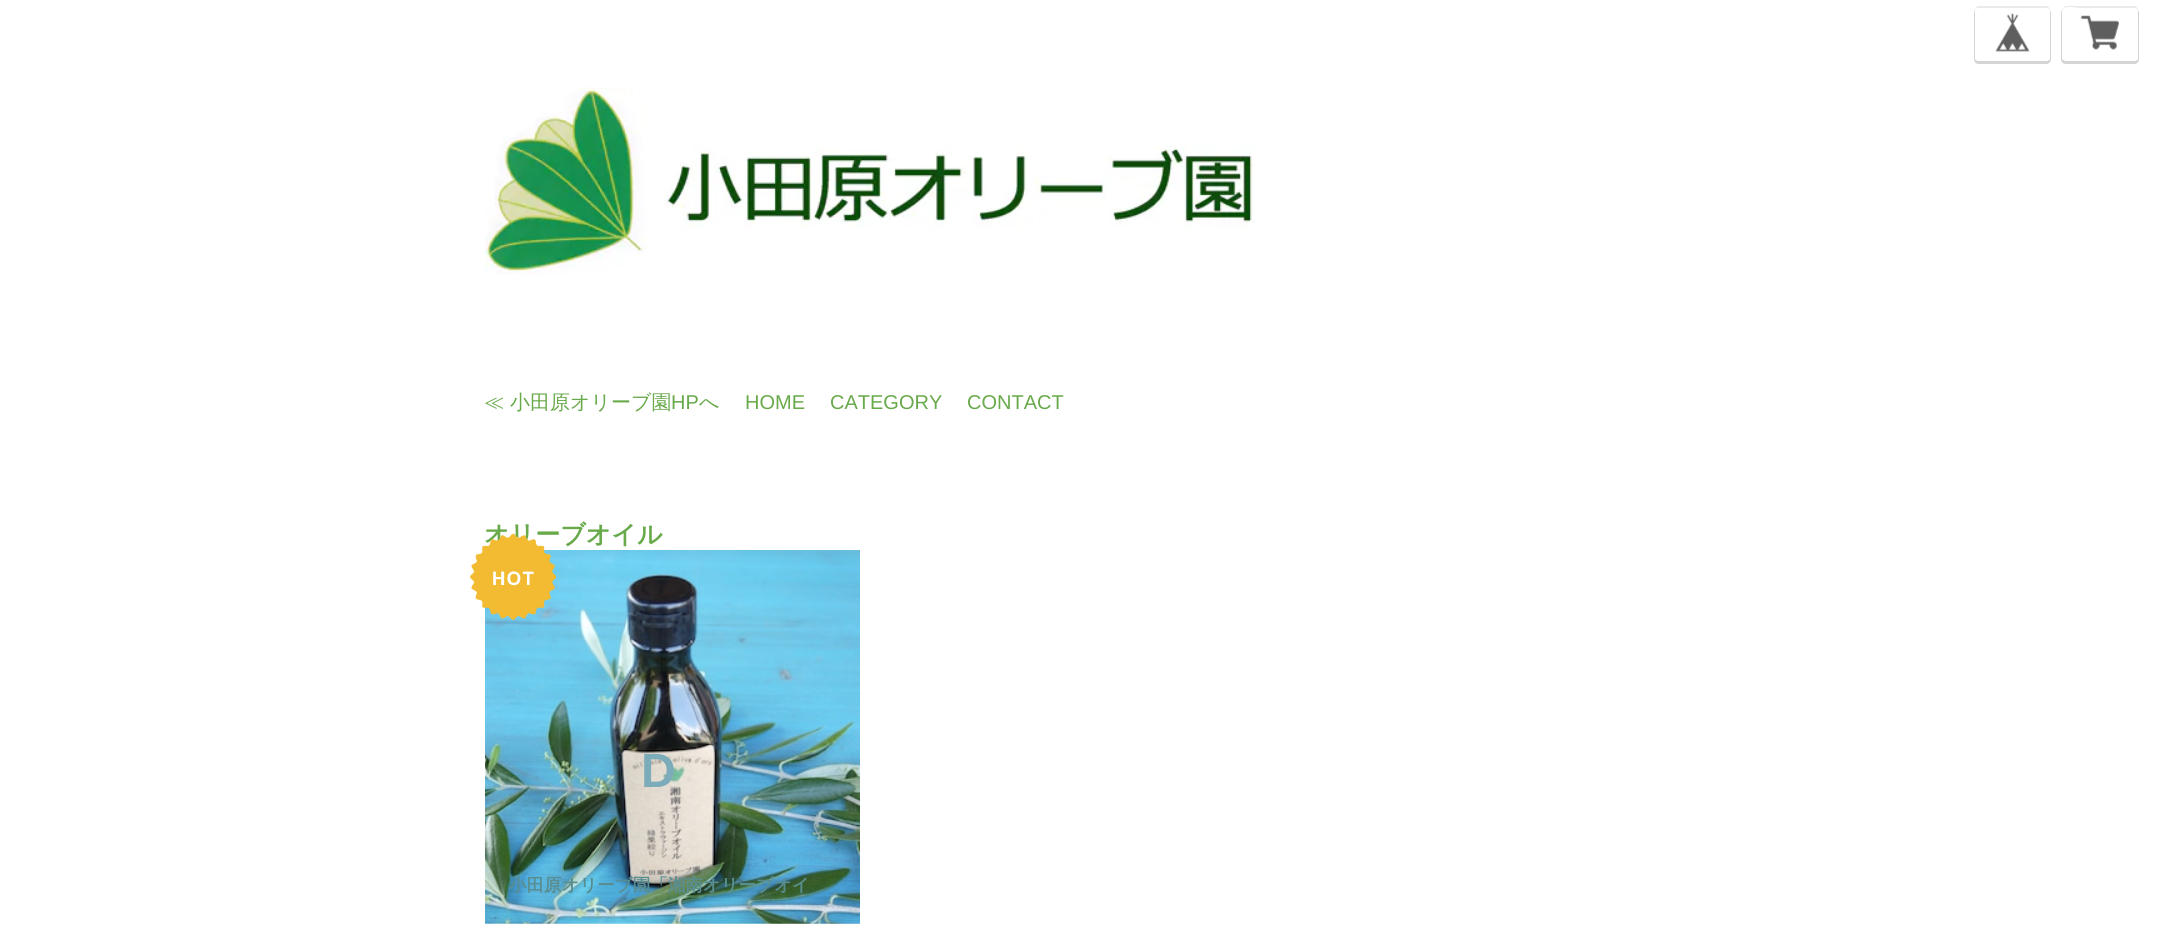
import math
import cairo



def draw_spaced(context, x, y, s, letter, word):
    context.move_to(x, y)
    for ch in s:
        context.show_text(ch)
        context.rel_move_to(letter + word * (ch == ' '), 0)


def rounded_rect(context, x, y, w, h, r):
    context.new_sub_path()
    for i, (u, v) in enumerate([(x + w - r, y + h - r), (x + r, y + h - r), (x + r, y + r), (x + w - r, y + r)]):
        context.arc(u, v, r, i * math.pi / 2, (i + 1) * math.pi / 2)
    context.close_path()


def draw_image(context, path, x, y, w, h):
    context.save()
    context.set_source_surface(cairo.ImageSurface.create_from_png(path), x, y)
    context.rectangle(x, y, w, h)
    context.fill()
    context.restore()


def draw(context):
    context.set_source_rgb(1, 1, 1)
    context.paint()
    context.set_source_rgb(234 / 255, 234 / 255, 234 / 255)
    context.new_path()
    context.move_to(1979, 6)
    context.curve_to(1976, 6, 1975, 9, 1975, 11)
    context.curve_to(1975, 9, 1977, 8, 1979, 8)
    context.line_to(2046, 8)
    context.curve_to(2048, 8, 2050, 9, 2050, 11)
    context.curve_to(2050, 9, 2049, 6, 2046, 6)
    context.close_path()
    context.fill()
    context.set_source_rgb(213 / 255, 213 / 255, 213 / 255)
    context.new_path()
    context.move_to(1975, 9)
    context.curve_to(1975, 10, 1974, 12, 1974, 13)
    context.line_to(1974, 59)
    context.curve_to(1974, 62, 1976, 64, 1979, 64)
    context.line_to(2046, 64)
    context.curve_to(2049, 64, 2051, 62, 2051, 59)
    context.line_to(2051, 13)
    context.curve_to(2051, 12, 2050, 10, 2050, 9)
    context.line_to(2050, 11)
    context.line_to(2050, 58)
    context.curve_to(2050, 60, 2048, 61, 2046, 61)
    context.line_to(1979, 61)
    context.curve_to(1977, 61, 1975, 60, 1975, 58)
    context.line_to(1975, 11)
    context.close_path()
    context.fill()
    context.set_source_rgb(1, 1, 1)
    rounded_rect(context, 1975, 8, 75, 53, 4)
    context.fill()
    draw_image(context, "images/1.png", 1995, 13, 35, 39)
    context.set_source_rgb(234 / 255, 234 / 255, 234 / 255)
    context.new_path()
    context.move_to(2067, 6)
    context.curve_to(2065, 6, 2063, 7, 2063, 9)
    context.curve_to(2066, 5, 2077, 8, 2078, 8)
    context.line_to(2122, 8)
    context.curve_to(2142, 8, 2138, 6, 2138, 27)
    context.line_to(2137, 58)
    context.line_to(2138, 56)
    context.line_to(2138, 10)
    context.curve_to(2138, 8, 2136, 6, 2134, 6)
    context.close_path()
    context.fill()
    context.set_source_rgba(150 / 255, 150 / 255, 150 / 255, 0.4)
    context.new_path()
    context.move_to(2064, 9)
    context.curve_to(2062, 9, 2061, 11, 2061, 13)
    context.line_to(2061, 59)
    context.curve_to(2061, 62, 2063, 64, 2066, 64)
    context.line_to(2134, 64)
    context.curve_to(2137, 64, 2139, 62, 2139, 59)
    context.line_to(2139, 13)
    context.curve_to(2139, 11, 2138, 9, 2136, 9)
    context.curve_to(2137, 9, 2138, 10, 2138, 11)
    context.line_to(2138, 58)
    context.curve_to(2138, 60, 2136, 61, 2134, 61)
    context.line_to(2066, 61)
    context.curve_to(2064, 61, 2062, 60, 2062, 58)
    context.line_to(2062, 11)
    context.curve_to(2062, 10, 2063, 9, 2064, 9)
    context.close_path()
    context.fill()
    context.set_source_rgb(1, 1, 1)
    rounded_rect(context, 2063, 8, 75, 53, 4)
    context.fill()
    draw_image(context, "images/2.png", 2080, 15, 39, 35)
    draw_image(context, "images/3.png", 485, 87, 770, 188)
    draw_image(context, "images/5.png", 485, 550, 375, 374)
    context.select_font_face("WenQuanYi Zen Hei Medium")
    context.set_font_size(20)
    context.set_source_rgb(104 / 255, 169 / 255, 74 / 255)
    context.move_to(484, 409)
    context.show_text("≪ 小田原オリーブ園")
    context.select_font_face("Liberation Sans")
    context.move_to(671, 409)
    context.show_text("HP")
    context.select_font_face("WenQuanYi Zen Hei Medium")
    context.move_to(699, 409)
    context.show_text("へ")
    context.select_font_face("Liberation Sans")
    context.move_to(745, 409)
    context.show_text("HOME")
    context.move_to(830, 409)
    context.show_text("CATEGORY")
    context.move_to(967, 409)
    context.show_text("CONTACT")
    context.select_font_face("WenQuanYi Zen Hei", cairo.FontSlant.NORMAL, cairo.FontWeight.BOLD)
    context.set_font_size(25)
    context.move_to(484, 543)
    context.show_text("オリーブオイル")
    draw_image(context, "images/4.png", 470, 533, 87, 87)
    context.select_font_face("Liberation Sans", cairo.FontSlant.NORMAL, cairo.FontWeight.BOLD)
    context.set_font_size(48)
    context.set_source_rgb(124 / 255, 171 / 255, 185 / 255)
    draw_spaced(context, 641, 787, "D", 6, 0)
    context.select_font_face("WenQuanYi Zen Hei", cairo.FontSlant.NORMAL, cairo.FontWeight.BOLD)
    context.set_font_size(17.5)
    context.set_source_rgb(88 / 255, 142 / 255, 145 / 255)
    context.move_to(509, 891)
    context.show_text("小田原オリーブ園「湘南オリーブオイ")


surface = cairo.ImageSurface(cairo.Format.RGB24, 2168, 949)
context = cairo.Context(surface)
options = cairo.FontOptions()
options.set_hint_metrics(cairo.HintMetrics.OFF)
options.set_hint_style(cairo.HintStyle.NONE)
context.set_font_options(options)
context.set_miter_limit(4)
draw(context)
surface.write_to_png("out.png")
